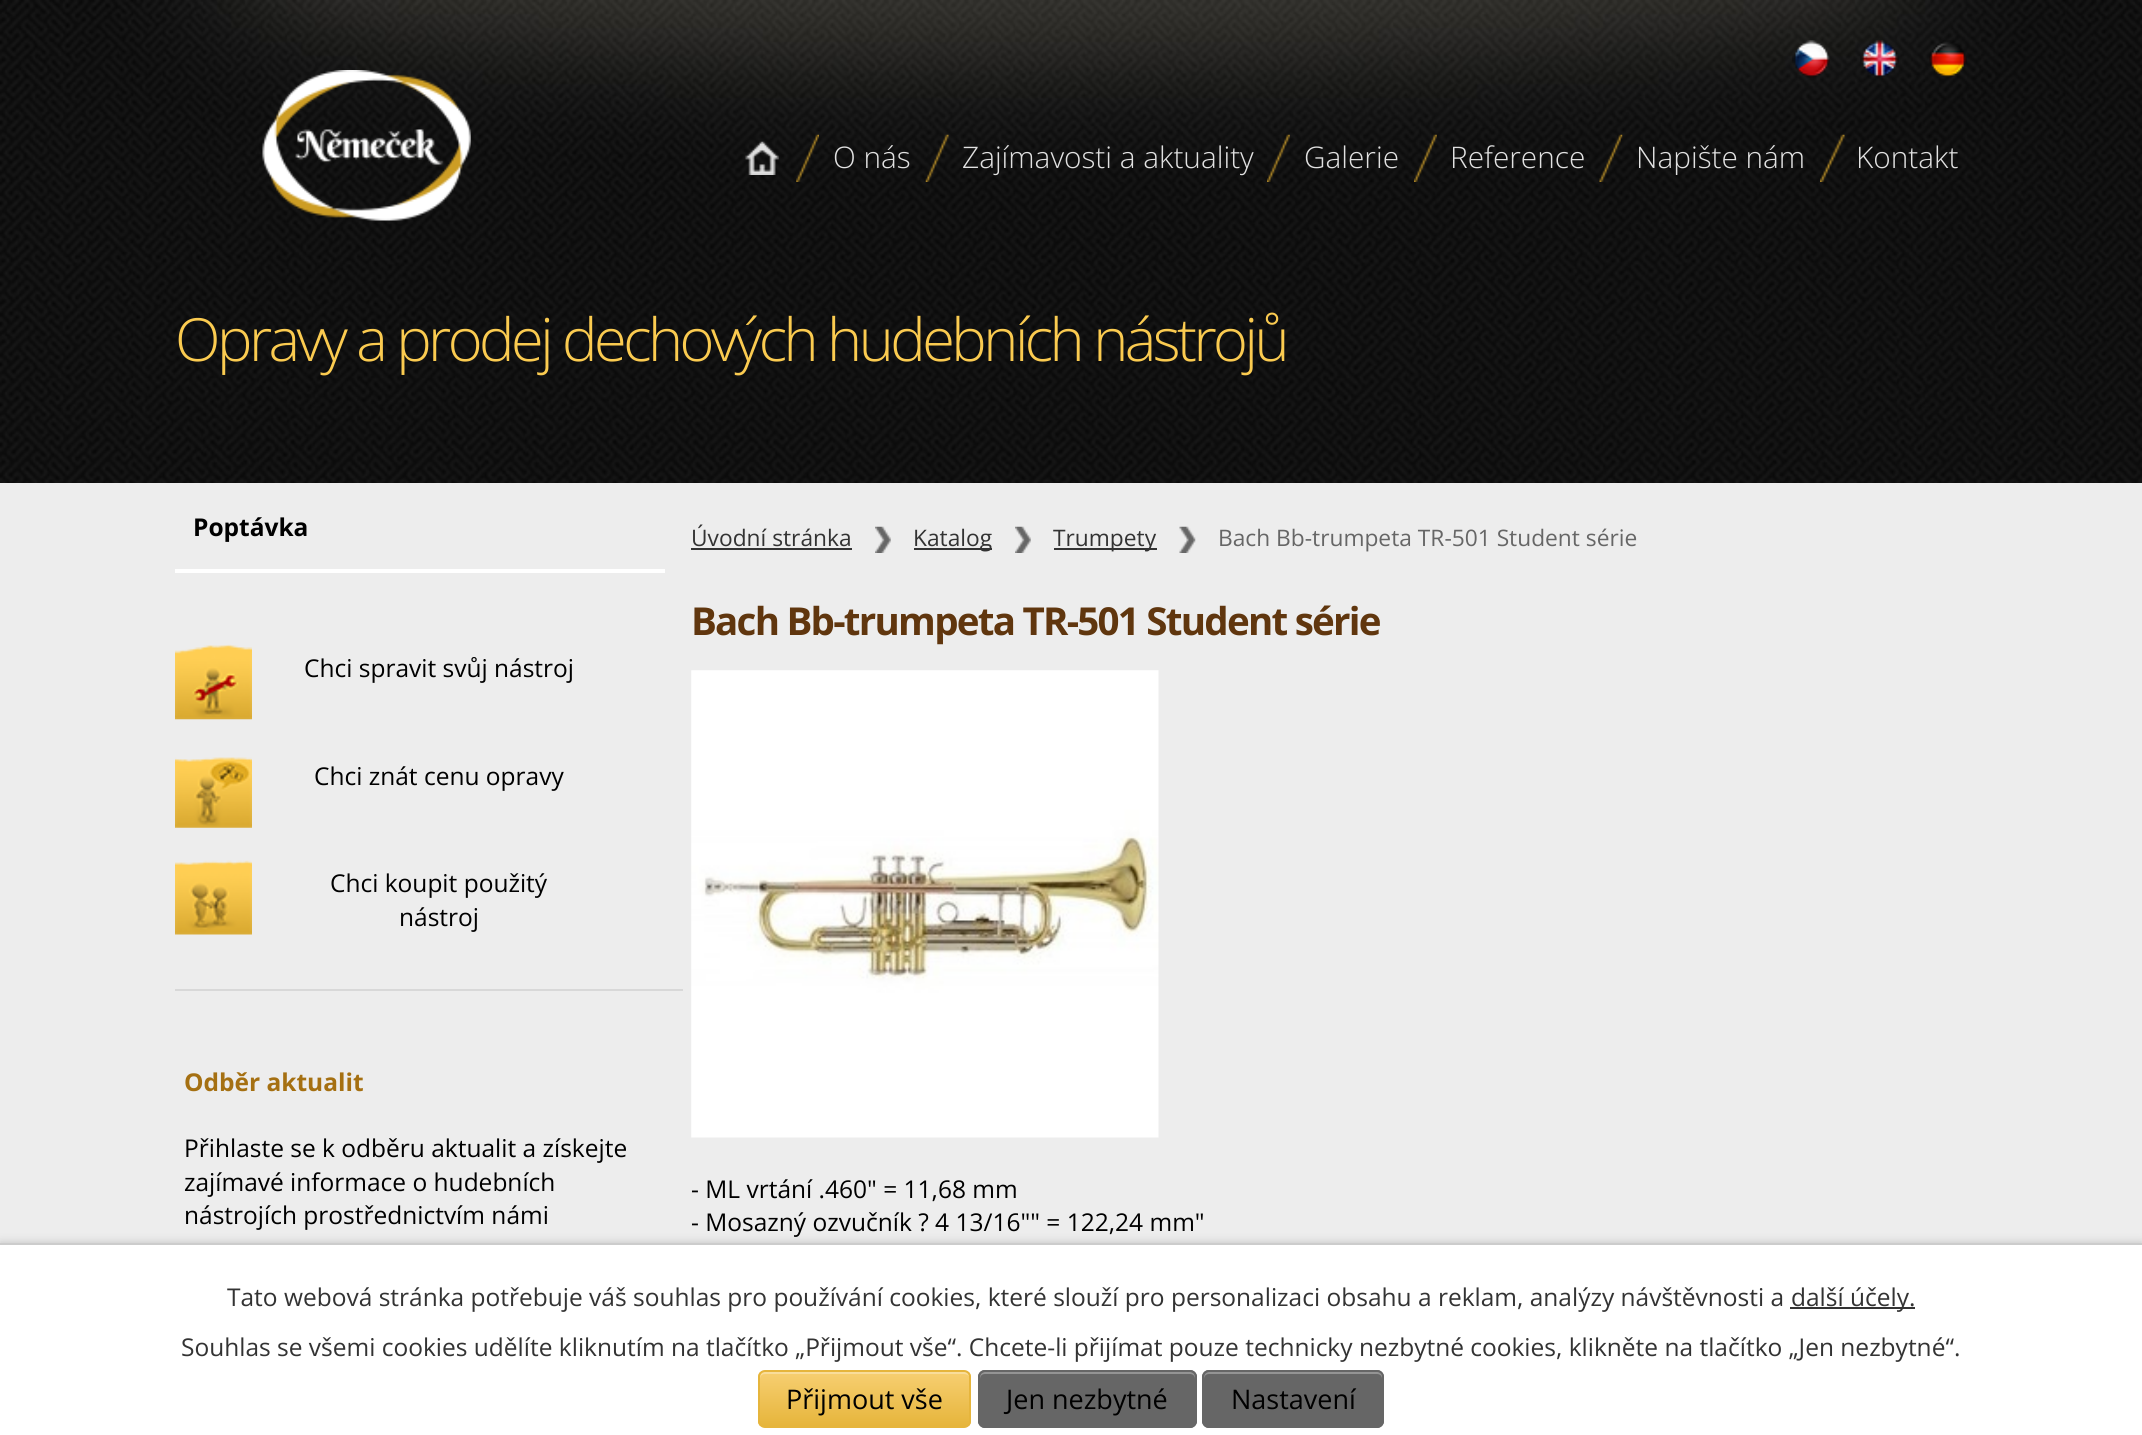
import math
import cairo



def draw_spaced(context, x, y, s, letter, word):
    context.move_to(x, y)
    for ch in s:
        context.show_text(ch)
        context.rel_move_to(letter + word * (ch == ' '), 0)


def rounded_rect(context, x, y, w, h, r):
    context.new_sub_path()
    for i, (u, v) in enumerate([(x + w - r, y + h - r), (x + r, y + h - r), (x + r, y + r), (x + w - r, y + r)]):
        context.arc(u, v, r, i * math.pi / 2, (i + 1) * math.pi / 2)
    context.close_path()


def draw_shadow(context, x, y, w, h, r, blur, alpha):
    context.push_group_with_content(cairo.Content.ALPHA)
    context.set_operator(cairo.Operator.SOURCE)
    for i in range(15, -16, -2):
        e = blur * i / 6
        if min(w, h) + 2 * e > 0:
            context.set_source_rgba(0, 0, 0, alpha * math.erfc((i - 1) / 8.5) / 2)
            rounded_rect(context, x - e, y - e, w + 2 * e, h + 2 * e, max(0, min(r + e + blur * .6, min(w, h) / 2 + e)))
            context.fill()
    context.mask(context.pop_group())


def draw_image(context, path, x, y, w, h):
    context.save()
    context.set_source_surface(cairo.ImageSurface.create_from_png(path), x, y)
    context.rectangle(x, y, w, h)
    context.fill()
    context.restore()


def draw(context):
    context.set_source_rgb(237 / 255, 237 / 255, 237 / 255)
    context.paint()
    draw_image(context, "images/1.png", 0, 0, 2142, 483)
    draw_image(context, "images/2.png", 745, 141, 34, 34)
    draw_image(context, "images/3.png", 796, 134, 23, 48)
    draw_image(context, "images/4.png", 925, 134, 24, 48)
    draw_image(context, "images/5.png", 1267, 134, 23, 48)
    draw_image(context, "images/6.png", 1414, 134, 23, 48)
    draw_image(context, "images/7.png", 1599, 134, 24, 48)
    draw_image(context, "images/8.png", 1820, 134, 25, 48)
    draw_image(context, "images/9.png", 262, 70, 209, 151)
    context.set_source_rgb(1, 1, 1)
    context.rectangle(175, 569, 490, 4)
    context.fill()
    draw_image(context, "images/10.png", 1792, 40, 38, 38)
    draw_image(context, "images/11.png", 1860, 40, 39, 37)
    draw_image(context, "images/12.png", 1929, 40, 38, 38)
    context.set_source_rgb(216 / 255, 216 / 255, 216 / 255)
    context.rectangle(175, 989, 508, 2)
    context.fill()
    draw_image(context, "images/13.png", 175, 644, 77, 76)
    draw_image(context, "images/14.png", 175, 757, 77, 71)
    draw_image(context, "images/15.png", 175, 860, 77, 75)
    context.set_source_rgb(51 / 255, 51 / 255, 51 / 255)
    context.rectangle(691, 548, 161, 2)
    context.fill()
    draw_image(context, "images/16.png", 875, 526, 16, 27)
    context.rectangle(914, 548, 78, 2)
    context.fill()
    draw_image(context, "images/17.png", 1015, 526, 16, 27)
    context.rectangle(1054, 548, 103, 2)
    context.fill()
    draw_image(context, "images/18.png", 1179, 526, 17, 27)
    draw_image(context, "images/19.png", 691, 670, 468, 468)
    context.set_source_rgb(0, 0, 0)
    draw_shadow(context, 0, 1243, 2142, 192, 0, 4.5, 0.2)
    context.set_source_rgb(1, 1, 1)
    context.rectangle(0, 1245, 2142, 190)
    context.fill()
    context.set_source_rgb(204 / 255, 204 / 255, 204 / 255)
    context.rectangle(0, 1243, 2142, 2)
    context.fill()
    context.set_source_rgb(51 / 255, 51 / 255, 51 / 255)
    context.rectangle(1790, 1307, 125, 2)
    context.fill()
    context.save()
    rounded_rect(context, 758, 1370, 213, 58, 7)
    context.clip()
    gradient = cairo.LinearGradient(760, 1372, 760, 1426)
    gradient.add_color_stop_rgba(0, 247 / 255, 207 / 255, 113 / 255, 1)
    gradient.add_color_stop_rgba(1, 230 / 255, 181 / 255, 60 / 255, 1)
    context.set_source(gradient)
    context.rectangle(758, 1372, 213, 54)
    context.fill()
    context.restore()
    context.set_source_rgba(1, 1, 1, 0.3)
    context.new_path()
    context.move_to(765, 1374)
    context.line_to(964, 1374)
    context.curve_to(967, 1374, 970, 1376, 970, 1379)
    context.line_to(970, 1377)
    context.curve_to(970, 1374, 968, 1372, 965, 1372)
    context.line_to(765, 1372)
    context.curve_to(762, 1372, 760, 1374, 760, 1377)
    context.line_to(760, 1379)
    context.curve_to(760, 1376, 762, 1374, 765, 1374)
    context.close_path()
    context.fill()
    rounded_rect(context, 759, 1371, 211, 56, 6)
    context.set_source_rgb(230 / 255, 181 / 255, 60 / 255)
    context.stroke()
    context.set_source_rgb(102 / 255, 102 / 255, 102 / 255)
    rounded_rect(context, 978, 1370, 219, 58, 7)
    context.fill()
    context.set_source_rgb(148 / 255, 148 / 255, 148 / 255)
    context.new_path()
    context.move_to(985, 1374)
    context.line_to(1190, 1374)
    context.curve_to(1193, 1374, 1195, 1376, 1195, 1379)
    context.line_to(1195, 1377)
    context.curve_to(1195, 1374, 1193, 1372, 1190, 1372)
    context.line_to(985, 1372)
    context.curve_to(982, 1372, 980, 1374, 980, 1377)
    context.line_to(980, 1379)
    context.curve_to(980, 1376, 982, 1374, 985, 1374)
    context.close_path()
    context.fill()
    rounded_rect(context, 979, 1371, 217, 56, 6)
    context.set_source_rgb(102 / 255, 102 / 255, 102 / 255)
    context.stroke()
    rounded_rect(context, 1202, 1370, 182, 58, 7)
    context.fill()
    context.set_source_rgb(148 / 255, 148 / 255, 148 / 255)
    context.new_path()
    context.move_to(1209, 1374)
    context.line_to(1377, 1374)
    context.curve_to(1380, 1374, 1382, 1376, 1382, 1379)
    context.line_to(1382, 1424)
    context.curve_to(1383, 1423, 1383, 1422, 1383, 1421)
    context.line_to(1383, 1377)
    context.curve_to(1383, 1374, 1381, 1372, 1378, 1372)
    context.line_to(1209, 1372)
    context.curve_to(1206, 1372, 1204, 1374, 1204, 1377)
    context.line_to(1204, 1379)
    context.curve_to(1204, 1376, 1206, 1374, 1209, 1374)
    context.close_path()
    context.fill()
    rounded_rect(context, 1203, 1371, 180, 56, 6)
    context.set_source_rgb(102 / 255, 102 / 255, 102 / 255)
    context.stroke()
    context.select_font_face("Open Sans Light")
    context.set_font_size(29.75)
    context.set_source_rgb(225 / 255, 225 / 255, 225 / 255)
    context.move_to(833, 168)
    context.show_text("O nás")
    context.move_to(962, 168)
    context.show_text("Zajímavosti a aktuality")
    context.move_to(1304, 168)
    context.show_text("Galerie")
    context.move_to(1450, 168)
    context.show_text("Reference")
    context.move_to(1636, 168)
    context.show_text("Napište nám")
    context.move_to(1856, 168)
    context.show_text("Kontakt")
    context.set_font_size(59.5)
    context.set_source_rgb(251 / 255, 203 / 255, 80 / 255)
    draw_spaced(context, 175, 361, "Opravy a prodej dechových hudebních nástrojů", -3.5, 0)
    context.select_font_face("Open Sans", cairo.FontSlant.NORMAL, cairo.FontWeight.BOLD)
    context.set_font_size(24.5)
    context.set_source_rgb(0, 0, 0)
    context.move_to(193, 536)
    context.show_text("Poptávka")
    context.select_font_face("Open Sans")
    context.move_to(304, 677)
    context.show_text("Chci spravit svůj nástroj")
    context.move_to(314, 785)
    context.show_text("Chci znát cenu opravy")
    context.move_to(330, 892)
    context.show_text("Chci koupit použitý")
    context.move_to(399, 926)
    context.show_text("nástroj")
    context.select_font_face("Open Sans", cairo.FontSlant.NORMAL, cairo.FontWeight.BOLD)
    context.set_source_rgb(165 / 255, 112 / 255, 18 / 255)
    context.move_to(184, 1091)
    context.show_text("Odběr aktualit")
    context.select_font_face("Open Sans")
    context.set_source_rgb(0, 0, 0)
    context.move_to(184, 1157)
    context.show_text("Přihlaste se k odběru aktualit a získejte")
    context.move_to(184, 1191)
    context.show_text("zajímavé informace o hudebních")
    context.move_to(184, 1224)
    context.show_text("nástrojích prostřednictvím námi")
    context.set_font_size(22.75)
    context.set_source_rgb(51 / 255, 51 / 255, 51 / 255)
    context.move_to(691, 546)
    context.show_text("Úvodní stránka")
    context.move_to(913, 546)
    context.show_text("Katalog")
    context.move_to(1053, 546)
    context.show_text("Trumpety")
    context.set_source_rgb(102 / 255, 102 / 255, 102 / 255)
    context.move_to(1218, 546)
    context.show_text("Bach Bb-trumpeta TR-501 Student série")
    context.select_font_face("Open Sans", cairo.FontSlant.NORMAL, cairo.FontWeight.BOLD)
    context.set_font_size(38.5)
    context.set_source_rgb(96 / 255, 54 / 255, 14 / 255)
    draw_spaced(context, 691, 635, "Bach Bb-trumpeta TR-501 Student série", -1.75, 0)
    context.select_font_face("Open Sans")
    context.set_font_size(24.5)
    context.set_source_rgb(0, 0, 0)
    context.move_to(691, 1198)
    context.show_text("- ML vrtání .460\" = 11,68 mm")
    context.move_to(691, 1231)
    context.show_text("- Mosazný ozvučník ? 4 13/16\"\" = 122,24 mm\"")
    context.set_source_rgb(51 / 255, 51 / 255, 51 / 255)
    context.move_to(227, 1306)
    context.show_text("Tato webová stránka potřebuje váš souhlas pro používání cookies, které slouží pro personalizaci obsahu a reklam, analýzy návštěvnosti a")
    context.move_to(1791, 1306)
    context.show_text("další účely.")
    context.move_to(181, 1356)
    context.show_text("Souhlas se všemi cookies udělíte kliknutím na tlačítko „Přijmout vše“. Chcete-li přijímat pouze technicky nezbytné cookies, klikněte na tlačítko „Jen nezbytné“.")
    context.set_font_size(27)
    context.set_source_rgb(0, 0, 0)
    context.move_to(786, 1409)
    context.show_text("Přijmout vše")
    context.move_to(1006, 1409)
    context.show_text("Jen nezbytné")
    context.move_to(1231, 1409)
    context.show_text("Nastavení")


surface = cairo.ImageSurface(cairo.Format.RGB24, 2142, 1435)
context = cairo.Context(surface)
options = cairo.FontOptions()
options.set_hint_metrics(cairo.HintMetrics.OFF)
options.set_hint_style(cairo.HintStyle.NONE)
context.set_font_options(options)
context.set_miter_limit(4)
draw(context)
surface.write_to_png("out.png")
